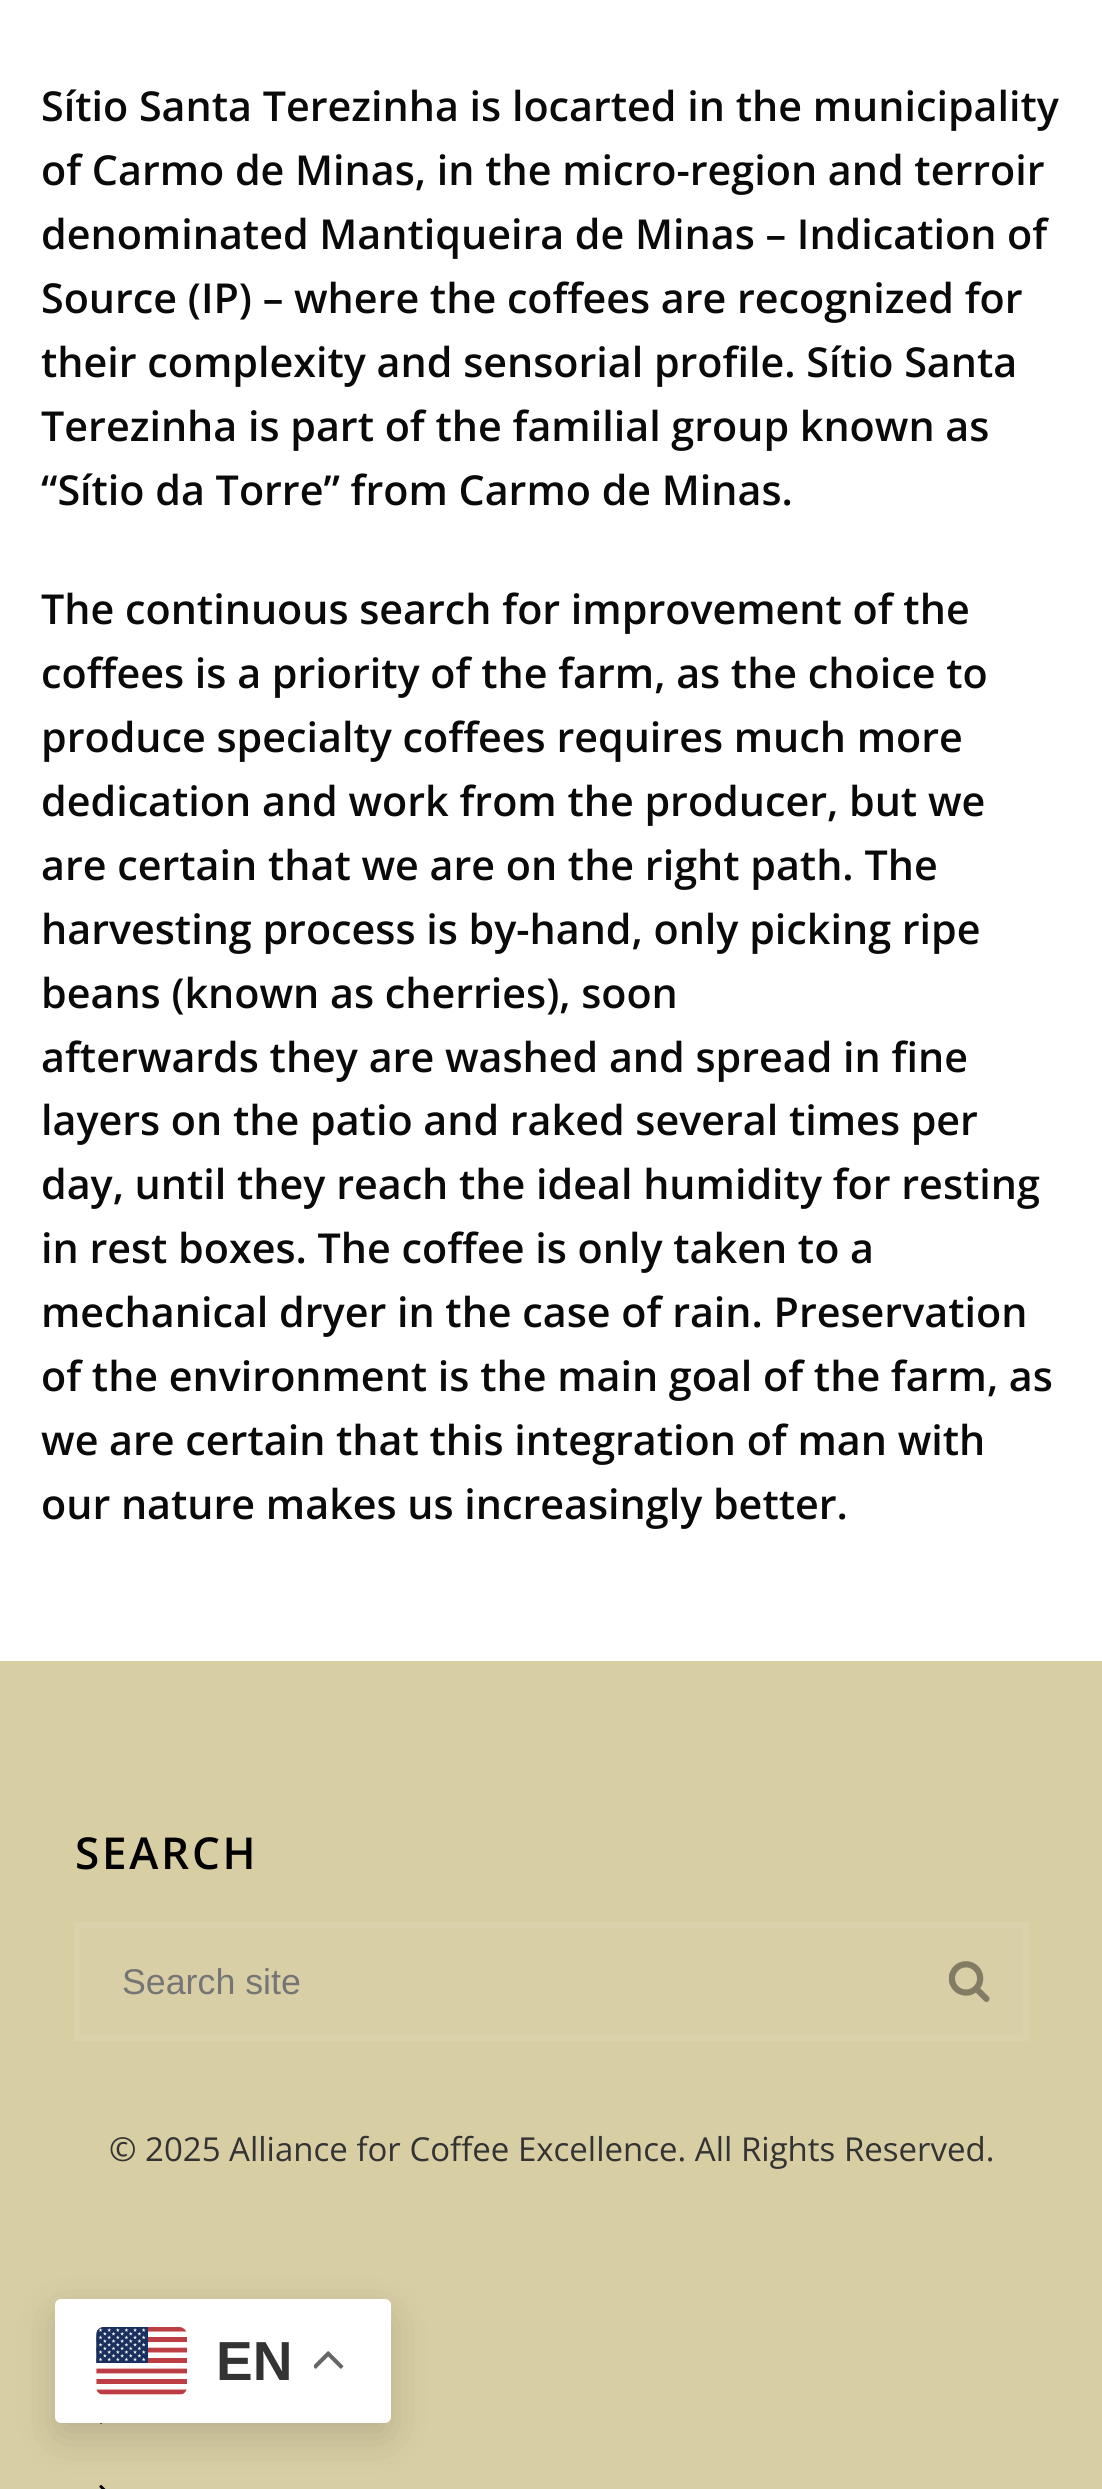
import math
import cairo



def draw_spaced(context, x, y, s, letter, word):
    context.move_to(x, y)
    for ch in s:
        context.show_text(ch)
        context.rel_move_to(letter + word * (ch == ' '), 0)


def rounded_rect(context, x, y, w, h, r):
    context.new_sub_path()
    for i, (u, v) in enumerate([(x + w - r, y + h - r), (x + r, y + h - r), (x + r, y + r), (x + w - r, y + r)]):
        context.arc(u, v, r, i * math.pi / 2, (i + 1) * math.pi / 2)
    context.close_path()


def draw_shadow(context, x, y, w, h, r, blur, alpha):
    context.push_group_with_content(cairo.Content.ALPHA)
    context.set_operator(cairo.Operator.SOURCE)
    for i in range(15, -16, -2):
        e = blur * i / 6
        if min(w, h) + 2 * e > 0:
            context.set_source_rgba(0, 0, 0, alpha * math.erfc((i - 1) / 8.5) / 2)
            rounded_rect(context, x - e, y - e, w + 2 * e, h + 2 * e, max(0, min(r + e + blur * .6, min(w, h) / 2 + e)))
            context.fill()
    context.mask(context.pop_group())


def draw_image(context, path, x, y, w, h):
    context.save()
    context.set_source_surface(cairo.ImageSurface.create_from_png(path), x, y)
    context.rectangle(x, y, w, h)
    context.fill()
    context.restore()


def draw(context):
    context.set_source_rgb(1, 1, 1)
    context.paint()
    context.set_source_rgb(216 / 255, 206 / 255, 164 / 255)
    context.rectangle(0, 1661, 1102, 828)
    context.fill()
    context.set_source_rgb(217 / 255, 207 / 255, 167 / 255)
    context.rectangle(77, 1925, 949, 113)
    context.fill_preserve()
    context.set_source_rgb(219 / 255, 209 / 255, 171 / 255)
    context.set_line_width(6)
    context.stroke()
    draw_image(context, "images/1.png", 949, 1961, 41, 41)
    draw_image(context, "images/2.png", 100, 2423, 2, 1)
    draw_image(context, "images/3.png", 99, 2485, 7, 4)
    context.set_source_rgb(0, 0, 0)
    draw_shadow(context, 55, 2313, 336, 124, 6, 20.5, 0.15)
    context.set_source_rgb(1, 1, 1)
    rounded_rect(context, 55, 2299, 336, 124, 6)
    context.fill()
    draw_image(context, "images/4.png", 96, 2327, 91, 68)
    draw_image(context, "images/5.png", 314, 2351, 30, 18)
    context.select_font_face("Open Sans SemiBold")
    context.set_font_size(41.25)
    context.set_source_rgb(10 / 255, 10 / 255, 10 / 255)
    context.move_to(41, 121)
    context.show_text("Sítio Santa Terezinha is locarted in the municipality")
    context.move_to(41, 185)
    context.show_text("of Carmo de Minas, in the micro-region and terroir")
    context.move_to(41, 249)
    context.show_text("denominated Mantiqueira de Minas – Indication of")
    context.move_to(41, 313)
    context.show_text("Source (IP) – where the coffees are recognized for")
    context.move_to(41, 377)
    context.show_text("their complexity and sensorial profile. Sítio Santa")
    context.move_to(41, 441)
    context.show_text("Terezinha is part of the familial group known as")
    context.move_to(41, 505)
    context.show_text("“Sítio da Torre” from Carmo de Minas.")
    context.move_to(41, 624)
    context.show_text("The continuous search for improvement of the")
    context.move_to(41, 688)
    context.show_text("coffees is a priority of the farm, as the choice to")
    context.move_to(41, 752)
    context.show_text("produce specialty coffees requires much more")
    context.move_to(41, 816)
    context.show_text("dedication and work from the producer, but we")
    context.move_to(41, 880)
    context.show_text("are certain that we are on the right path. The")
    context.move_to(41, 944)
    context.show_text("harvesting process is by-hand, only picking ripe")
    context.move_to(41, 1008)
    context.show_text("beans (known as cherries), soon")
    context.move_to(41, 1072)
    context.show_text("afterwards they are washed and spread in fine")
    context.move_to(41, 1135)
    context.show_text("layers on the patio and raked several times per")
    context.move_to(41, 1199)
    context.show_text("day, until they reach the ideal humidity for resting")
    context.move_to(41, 1263)
    context.show_text("in rest boxes. The coffee is only taken to a")
    context.move_to(41, 1327)
    context.show_text("mechanical dryer in the case of rain. Preservation")
    context.move_to(41, 1391)
    context.show_text("of the environment is the main goal of the farm, as")
    context.move_to(41, 1455)
    context.show_text("we are certain that this integration of man with")
    context.move_to(41, 1519)
    context.show_text("our nature makes us increasingly better.")
    context.set_font_size(44)
    context.set_source_rgb(0, 0, 0)
    draw_spaced(context, 75, 1869, "SEARCH", 2.75, 0)
    context.select_font_face("Liberation Sans")
    context.set_font_size(35.75)
    context.set_source_rgb(117 / 255, 117 / 255, 117 / 255)
    context.move_to(122, 1994)
    context.show_text("Search site")
    context.select_font_face("Open Sans")
    context.set_font_size(33)
    context.set_source_rgb(51 / 255, 51 / 255, 51 / 255)
    context.move_to(109, 2161)
    context.show_text("© 2025 Alliance for Coffee Excellence. All Rights Reserved.")
    context.select_font_face("Liberation Sans", cairo.FontSlant.NORMAL, cairo.FontWeight.BOLD)
    context.set_font_size(55)
    context.move_to(216, 2380)
    context.show_text("EN")


surface = cairo.ImageSurface(cairo.Format.RGB24, 1102, 2489)
context = cairo.Context(surface)
options = cairo.FontOptions()
options.set_hint_metrics(cairo.HintMetrics.OFF)
options.set_hint_style(cairo.HintStyle.NONE)
context.set_font_options(options)
context.set_miter_limit(4)
draw(context)
surface.write_to_png("out.png")
